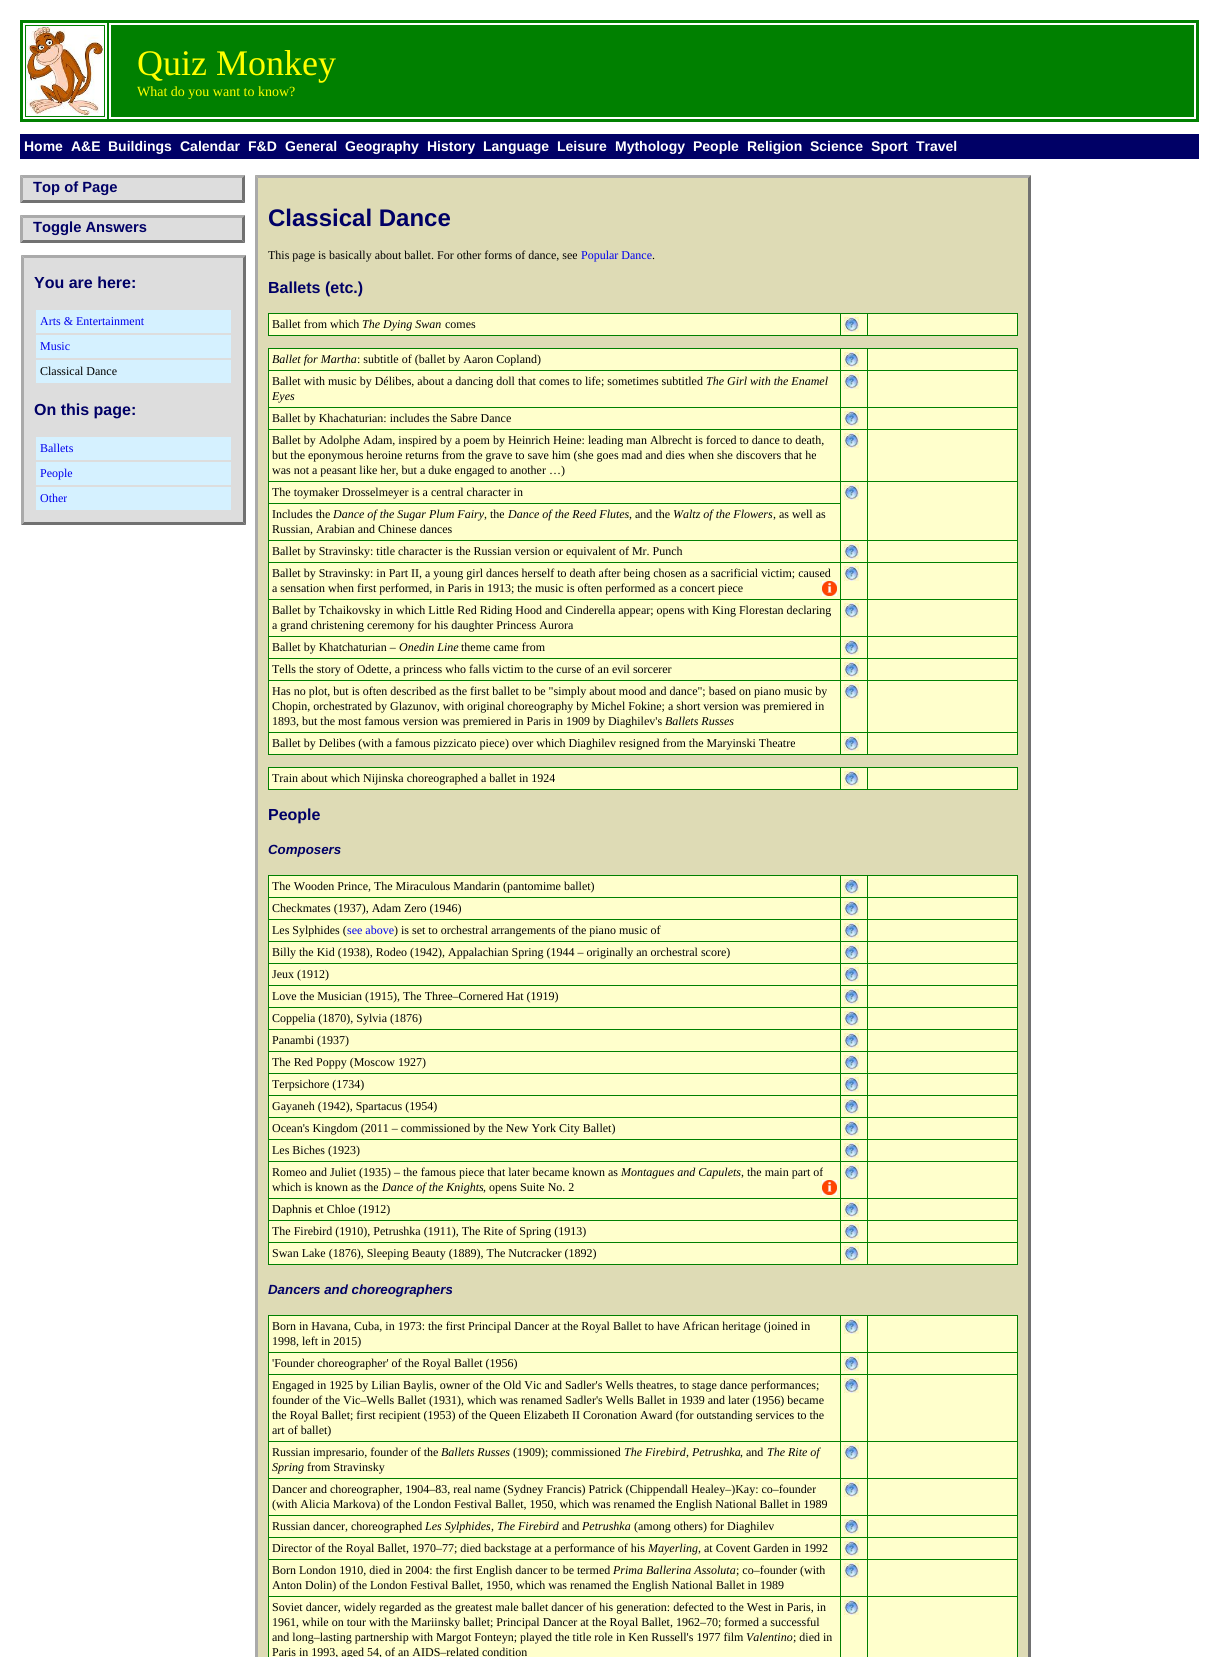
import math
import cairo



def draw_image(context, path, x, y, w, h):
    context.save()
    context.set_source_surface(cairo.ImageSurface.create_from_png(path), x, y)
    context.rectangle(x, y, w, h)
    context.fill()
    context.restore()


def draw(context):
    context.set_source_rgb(1, 1, 1)
    context.paint()
    context.set_source_rgb(0, 128 / 255, 0)
    context.rectangle(20, 20, 1179, 102)
    context.fill()
    context.rectangle(24, 24, 82, 94)
    context.set_source_rgb(1, 1, 1)
    context.stroke()
    draw_image(context, "images/1.png", 26, 26, 78, 90)
    context.rectangle(110, 24, 1085, 94)
    context.stroke()
    context.set_source_rgb(0, 0, 102 / 255)
    context.rectangle(20, 134, 1179, 25)
    context.fill()
    context.set_source_rgb(221 / 255, 221 / 255, 221 / 255)
    context.rectangle(20, 175, 225, 28)
    context.fill()
    context.set_source_rgb(170 / 255, 170 / 255, 170 / 255)
    context.new_path()
    context.move_to(20, 175)
    context.line_to(245, 175)
    context.line_to(242, 178)
    context.line_to(23, 178)
    context.close_path()
    context.fill()
    context.set_source_rgb(113 / 255, 113 / 255, 113 / 255)
    context.new_path()
    context.move_to(245, 175)
    context.line_to(245, 203)
    context.line_to(242, 200)
    context.line_to(242, 178)
    context.close_path()
    context.fill()
    context.new_path()
    context.move_to(245, 203)
    context.line_to(20, 203)
    context.line_to(23, 200)
    context.line_to(242, 200)
    context.close_path()
    context.fill()
    context.set_source_rgb(170 / 255, 170 / 255, 170 / 255)
    context.new_path()
    context.move_to(20, 203)
    context.line_to(20, 175)
    context.line_to(23, 178)
    context.line_to(23, 200)
    context.close_path()
    context.fill()
    context.set_source_rgb(221 / 255, 221 / 255, 221 / 255)
    context.rectangle(20, 215, 225, 28)
    context.fill()
    context.set_source_rgb(170 / 255, 170 / 255, 170 / 255)
    context.new_path()
    context.move_to(20, 215)
    context.line_to(245, 215)
    context.line_to(242, 218)
    context.line_to(23, 218)
    context.close_path()
    context.fill()
    context.set_source_rgb(113 / 255, 113 / 255, 113 / 255)
    context.new_path()
    context.move_to(245, 215)
    context.line_to(245, 243)
    context.line_to(242, 240)
    context.line_to(242, 218)
    context.close_path()
    context.fill()
    context.new_path()
    context.move_to(245, 243)
    context.line_to(20, 243)
    context.line_to(23, 240)
    context.line_to(242, 240)
    context.close_path()
    context.fill()
    context.set_source_rgb(170 / 255, 170 / 255, 170 / 255)
    context.new_path()
    context.move_to(20, 243)
    context.line_to(20, 215)
    context.line_to(23, 218)
    context.line_to(23, 240)
    context.close_path()
    context.fill()
    context.set_source_rgb(222 / 255, 219 / 255, 181 / 255)
    context.rectangle(255, 175, 776, 1482)
    context.fill()
    context.set_source_rgb(170 / 255, 170 / 255, 170 / 255)
    context.new_path()
    context.move_to(255, 175)
    context.line_to(1031, 175)
    context.line_to(1028, 178)
    context.line_to(258, 178)
    context.close_path()
    context.fill()
    context.set_source_rgb(113 / 255, 113 / 255, 113 / 255)
    context.new_path()
    context.move_to(1031, 175)
    context.line_to(1031, 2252)
    context.line_to(1028, 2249)
    context.line_to(1028, 178)
    context.close_path()
    context.fill()
    context.set_source_rgb(170 / 255, 170 / 255, 170 / 255)
    context.new_path()
    context.move_to(255, 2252)
    context.line_to(255, 175)
    context.line_to(258, 178)
    context.line_to(258, 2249)
    context.close_path()
    context.fill()
    context.set_source_rgb(0, 128 / 255, 0)
    context.rectangle(268, 313, 750, 1)
    context.fill()
    context.rectangle(1017, 313, 1, 23)
    context.fill()
    context.rectangle(268, 335, 750, 1)
    context.fill()
    context.rectangle(268, 313, 1, 23)
    context.fill()
    context.set_source_rgb(1, 1, 204 / 255)
    context.rectangle(269, 314, 571, 21)
    context.fill()
    context.rectangle(841, 314, 26, 21)
    context.fill()
    context.set_source_rgb(0, 128 / 255, 0)
    context.rectangle(840, 313, 1, 23)
    context.fill()
    draw_image(context, "images/2.png", 844, 317, 15, 15)
    context.set_source_rgb(1, 1, 204 / 255)
    context.rectangle(868, 314, 149, 21)
    context.fill()
    context.set_source_rgb(0, 128 / 255, 0)
    context.rectangle(867, 313, 1, 23)
    context.fill()
    context.rectangle(268, 348, 750, 1)
    context.fill()
    context.rectangle(1017, 348, 1, 407)
    context.fill()
    context.rectangle(268, 754, 750, 1)
    context.fill()
    context.rectangle(268, 348, 1, 407)
    context.fill()
    context.set_source_rgb(1, 1, 204 / 255)
    context.rectangle(269, 349, 571, 21)
    context.fill()
    context.rectangle(841, 349, 26, 21)
    context.fill()
    context.set_source_rgb(0, 128 / 255, 0)
    context.rectangle(867, 370, 151, 1)
    context.fill()
    context.rectangle(867, 407, 151, 1)
    context.fill()
    context.rectangle(867, 429, 151, 1)
    context.fill()
    context.rectangle(867, 481, 151, 1)
    context.fill()
    context.rectangle(867, 540, 151, 1)
    context.fill()
    context.rectangle(867, 562, 151, 1)
    context.fill()
    context.rectangle(867, 599, 151, 1)
    context.fill()
    context.rectangle(867, 636, 151, 1)
    context.fill()
    context.rectangle(867, 658, 151, 1)
    context.fill()
    context.rectangle(867, 680, 151, 1)
    context.fill()
    context.rectangle(867, 732, 151, 1)
    context.fill()
    context.rectangle(867, 732, 1, 23)
    context.fill()
    context.rectangle(840, 732, 28, 1)
    context.fill()
    context.rectangle(867, 680, 1, 53)
    context.fill()
    context.rectangle(840, 680, 28, 1)
    context.fill()
    context.rectangle(867, 658, 1, 23)
    context.fill()
    context.rectangle(840, 658, 28, 1)
    context.fill()
    context.rectangle(867, 636, 1, 23)
    context.fill()
    context.rectangle(840, 636, 28, 1)
    context.fill()
    context.rectangle(867, 599, 1, 38)
    context.fill()
    context.rectangle(840, 599, 28, 1)
    context.fill()
    context.rectangle(867, 562, 1, 38)
    context.fill()
    context.rectangle(840, 562, 28, 1)
    context.fill()
    context.rectangle(867, 540, 1, 23)
    context.fill()
    context.rectangle(840, 540, 28, 1)
    context.fill()
    context.rectangle(867, 481, 1, 60)
    context.fill()
    context.rectangle(840, 481, 28, 1)
    context.fill()
    context.rectangle(867, 429, 1, 53)
    context.fill()
    context.rectangle(840, 429, 28, 1)
    context.fill()
    context.rectangle(867, 407, 1, 23)
    context.fill()
    context.rectangle(840, 407, 28, 1)
    context.fill()
    context.rectangle(867, 370, 1, 38)
    context.fill()
    context.rectangle(840, 370, 28, 1)
    context.fill()
    context.rectangle(268, 503, 573, 1)
    context.fill()
    context.rectangle(840, 732, 1, 23)
    context.fill()
    context.rectangle(268, 732, 573, 1)
    context.fill()
    context.rectangle(840, 680, 1, 53)
    context.fill()
    context.rectangle(268, 680, 573, 1)
    context.fill()
    context.rectangle(840, 658, 1, 23)
    context.fill()
    context.rectangle(268, 658, 573, 1)
    context.fill()
    context.rectangle(840, 636, 1, 23)
    context.fill()
    context.rectangle(268, 636, 573, 1)
    context.fill()
    context.rectangle(840, 599, 1, 38)
    context.fill()
    context.rectangle(268, 599, 573, 1)
    context.fill()
    context.rectangle(840, 562, 1, 38)
    context.fill()
    context.rectangle(268, 562, 573, 1)
    context.fill()
    context.rectangle(840, 540, 1, 23)
    context.fill()
    context.rectangle(268, 540, 573, 1)
    context.fill()
    context.rectangle(840, 481, 1, 60)
    context.fill()
    context.rectangle(268, 481, 573, 1)
    context.fill()
    context.rectangle(840, 429, 1, 53)
    context.fill()
    context.rectangle(268, 429, 573, 1)
    context.fill()
    context.rectangle(840, 407, 1, 23)
    context.fill()
    context.rectangle(268, 407, 573, 1)
    context.fill()
    context.rectangle(840, 370, 1, 38)
    context.fill()
    context.rectangle(268, 370, 573, 1)
    context.fill()
    context.rectangle(840, 348, 1, 23)
    context.fill()
    draw_image(context, "images/2.png", 844, 352, 15, 15)
    context.set_source_rgb(1, 1, 204 / 255)
    context.rectangle(868, 349, 149, 21)
    context.fill()
    context.set_source_rgb(0, 128 / 255, 0)
    context.rectangle(867, 348, 1, 23)
    context.fill()
    context.set_source_rgb(1, 1, 204 / 255)
    context.rectangle(269, 371, 571, 36)
    context.fill()
    context.rectangle(841, 371, 26, 36)
    context.fill()
    draw_image(context, "images/2.png", 844, 374, 15, 15)
    context.rectangle(868, 371, 149, 36)
    context.fill()
    context.rectangle(269, 408, 571, 21)
    context.fill()
    context.rectangle(841, 408, 26, 21)
    context.fill()
    draw_image(context, "images/2.png", 844, 411, 15, 15)
    context.rectangle(868, 408, 149, 21)
    context.fill()
    context.rectangle(269, 430, 571, 51)
    context.fill()
    context.rectangle(841, 430, 26, 51)
    context.fill()
    draw_image(context, "images/2.png", 844, 433, 15, 15)
    context.rectangle(868, 430, 149, 51)
    context.fill()
    context.rectangle(269, 482, 571, 21)
    context.fill()
    context.rectangle(841, 482, 26, 58)
    context.fill()
    draw_image(context, "images/2.png", 844, 485, 15, 15)
    context.rectangle(868, 482, 149, 58)
    context.fill()
    context.rectangle(269, 504, 571, 36)
    context.fill()
    context.rectangle(269, 541, 571, 21)
    context.fill()
    context.rectangle(841, 541, 26, 21)
    context.fill()
    draw_image(context, "images/2.png", 844, 544, 15, 15)
    context.rectangle(868, 541, 149, 21)
    context.fill()
    context.rectangle(269, 563, 571, 36)
    context.fill()
    draw_image(context, "images/3.png", 822, 581, 15, 15)
    context.rectangle(841, 563, 26, 36)
    context.fill()
    draw_image(context, "images/2.png", 844, 566, 15, 15)
    context.rectangle(868, 563, 149, 36)
    context.fill()
    context.rectangle(269, 600, 571, 36)
    context.fill()
    context.rectangle(841, 600, 26, 36)
    context.fill()
    draw_image(context, "images/2.png", 844, 603, 15, 15)
    context.rectangle(868, 600, 149, 36)
    context.fill()
    context.rectangle(269, 637, 571, 21)
    context.fill()
    context.rectangle(841, 637, 26, 21)
    context.fill()
    draw_image(context, "images/2.png", 844, 640, 15, 15)
    context.rectangle(868, 637, 149, 21)
    context.fill()
    context.rectangle(269, 659, 571, 21)
    context.fill()
    context.rectangle(841, 659, 26, 21)
    context.fill()
    draw_image(context, "images/2.png", 844, 662, 15, 15)
    context.rectangle(868, 659, 149, 21)
    context.fill()
    context.rectangle(269, 681, 571, 51)
    context.fill()
    context.rectangle(841, 681, 26, 51)
    context.fill()
    draw_image(context, "images/2.png", 844, 684, 15, 15)
    context.rectangle(868, 681, 149, 51)
    context.fill()
    context.rectangle(269, 733, 571, 21)
    context.fill()
    context.rectangle(841, 733, 26, 21)
    context.fill()
    draw_image(context, "images/2.png", 844, 736, 15, 15)
    context.rectangle(868, 733, 149, 21)
    context.fill()
    context.set_source_rgb(0, 128 / 255, 0)
    context.rectangle(268, 767, 750, 1)
    context.fill()
    context.rectangle(1017, 767, 1, 23)
    context.fill()
    context.rectangle(268, 789, 750, 1)
    context.fill()
    context.rectangle(268, 767, 1, 23)
    context.fill()
    context.set_source_rgb(1, 1, 204 / 255)
    context.rectangle(269, 768, 571, 21)
    context.fill()
    context.rectangle(841, 768, 26, 21)
    context.fill()
    context.set_source_rgb(0, 128 / 255, 0)
    context.rectangle(840, 767, 1, 23)
    context.fill()
    draw_image(context, "images/2.png", 844, 771, 15, 15)
    context.set_source_rgb(1, 1, 204 / 255)
    context.rectangle(868, 768, 149, 21)
    context.fill()
    context.set_source_rgb(0, 128 / 255, 0)
    context.rectangle(867, 767, 1, 23)
    context.fill()
    context.rectangle(268, 875, 750, 1)
    context.fill()
    context.rectangle(1017, 875, 1, 390)
    context.fill()
    context.rectangle(268, 1264, 750, 1)
    context.fill()
    context.rectangle(268, 875, 1, 390)
    context.fill()
    context.set_source_rgb(1, 1, 204 / 255)
    context.rectangle(269, 876, 571, 21)
    context.fill()
    context.rectangle(841, 876, 26, 21)
    context.fill()
    context.set_source_rgb(0, 128 / 255, 0)
    context.rectangle(867, 897, 151, 1)
    context.fill()
    context.rectangle(867, 919, 151, 1)
    context.fill()
    context.rectangle(867, 941, 151, 1)
    context.fill()
    context.rectangle(867, 963, 151, 1)
    context.fill()
    context.rectangle(867, 985, 151, 1)
    context.fill()
    context.rectangle(867, 1007, 151, 1)
    context.fill()
    context.rectangle(867, 1029, 151, 1)
    context.fill()
    context.rectangle(867, 1051, 151, 1)
    context.fill()
    context.rectangle(867, 1073, 151, 1)
    context.fill()
    context.rectangle(867, 1095, 151, 1)
    context.fill()
    context.rectangle(867, 1117, 151, 1)
    context.fill()
    context.rectangle(867, 1139, 151, 1)
    context.fill()
    context.rectangle(867, 1161, 151, 1)
    context.fill()
    context.rectangle(867, 1198, 151, 1)
    context.fill()
    context.rectangle(867, 1220, 151, 1)
    context.fill()
    context.rectangle(867, 1242, 151, 1)
    context.fill()
    context.rectangle(867, 1242, 1, 23)
    context.fill()
    context.rectangle(840, 1242, 28, 1)
    context.fill()
    context.rectangle(867, 1220, 1, 23)
    context.fill()
    context.rectangle(840, 1220, 28, 1)
    context.fill()
    context.rectangle(867, 1198, 1, 23)
    context.fill()
    context.rectangle(840, 1198, 28, 1)
    context.fill()
    context.rectangle(867, 1161, 1, 38)
    context.fill()
    context.rectangle(840, 1161, 28, 1)
    context.fill()
    context.rectangle(867, 1139, 1, 23)
    context.fill()
    context.rectangle(840, 1139, 28, 1)
    context.fill()
    context.rectangle(867, 1117, 1, 23)
    context.fill()
    context.rectangle(840, 1117, 28, 1)
    context.fill()
    context.rectangle(867, 1095, 1, 23)
    context.fill()
    context.rectangle(840, 1095, 28, 1)
    context.fill()
    context.rectangle(867, 1073, 1, 23)
    context.fill()
    context.rectangle(840, 1073, 28, 1)
    context.fill()
    context.rectangle(867, 1051, 1, 23)
    context.fill()
    context.rectangle(840, 1051, 28, 1)
    context.fill()
    context.rectangle(867, 1029, 1, 23)
    context.fill()
    context.rectangle(840, 1029, 28, 1)
    context.fill()
    context.rectangle(867, 1007, 1, 23)
    context.fill()
    context.rectangle(840, 1007, 28, 1)
    context.fill()
    context.rectangle(867, 985, 1, 23)
    context.fill()
    context.rectangle(840, 985, 28, 1)
    context.fill()
    context.rectangle(867, 963, 1, 23)
    context.fill()
    context.rectangle(840, 963, 28, 1)
    context.fill()
    context.rectangle(867, 941, 1, 23)
    context.fill()
    context.rectangle(840, 941, 28, 1)
    context.fill()
    context.rectangle(867, 919, 1, 23)
    context.fill()
    context.rectangle(840, 919, 28, 1)
    context.fill()
    context.rectangle(867, 897, 1, 23)
    context.fill()
    context.rectangle(840, 897, 28, 1)
    context.fill()
    context.rectangle(840, 1242, 1, 23)
    context.fill()
    context.rectangle(268, 1242, 573, 1)
    context.fill()
    context.rectangle(840, 1220, 1, 23)
    context.fill()
    context.rectangle(268, 1220, 573, 1)
    context.fill()
    context.rectangle(840, 1198, 1, 23)
    context.fill()
    context.rectangle(268, 1198, 573, 1)
    context.fill()
    context.rectangle(840, 1161, 1, 38)
    context.fill()
    context.rectangle(268, 1161, 573, 1)
    context.fill()
    context.rectangle(840, 1139, 1, 23)
    context.fill()
    context.rectangle(268, 1139, 573, 1)
    context.fill()
    context.rectangle(840, 1117, 1, 23)
    context.fill()
    context.rectangle(268, 1117, 573, 1)
    context.fill()
    context.rectangle(840, 1095, 1, 23)
    context.fill()
    context.rectangle(268, 1095, 573, 1)
    context.fill()
    context.rectangle(840, 1073, 1, 23)
    context.fill()
    context.rectangle(268, 1073, 573, 1)
    context.fill()
    context.rectangle(840, 1051, 1, 23)
    context.fill()
    context.rectangle(268, 1051, 573, 1)
    context.fill()
    context.rectangle(840, 1029, 1, 23)
    context.fill()
    context.rectangle(268, 1029, 573, 1)
    context.fill()
    context.rectangle(840, 1007, 1, 23)
    context.fill()
    context.rectangle(268, 1007, 573, 1)
    context.fill()
    context.rectangle(840, 985, 1, 23)
    context.fill()
    context.rectangle(268, 985, 573, 1)
    context.fill()
    context.rectangle(840, 963, 1, 23)
    context.fill()
    context.rectangle(268, 963, 573, 1)
    context.fill()
    context.rectangle(840, 941, 1, 23)
    context.fill()
    context.rectangle(268, 941, 573, 1)
    context.fill()
    context.rectangle(840, 919, 1, 23)
    context.fill()
    context.rectangle(268, 919, 573, 1)
    context.fill()
    context.rectangle(840, 897, 1, 23)
    context.fill()
    context.rectangle(268, 897, 573, 1)
    context.fill()
    context.rectangle(840, 875, 1, 23)
    context.fill()
    draw_image(context, "images/2.png", 844, 879, 15, 15)
    context.set_source_rgb(1, 1, 204 / 255)
    context.rectangle(868, 876, 149, 21)
    context.fill()
    context.set_source_rgb(0, 128 / 255, 0)
    context.rectangle(867, 875, 1, 23)
    context.fill()
    context.set_source_rgb(1, 1, 204 / 255)
    context.rectangle(269, 898, 571, 21)
    context.fill()
    context.rectangle(841, 898, 26, 21)
    context.fill()
    draw_image(context, "images/2.png", 844, 901, 15, 15)
    context.rectangle(868, 898, 149, 21)
    context.fill()
    context.rectangle(269, 920, 571, 21)
    context.fill()
    context.rectangle(841, 920, 26, 21)
    context.fill()
    draw_image(context, "images/2.png", 844, 923, 15, 15)
    context.rectangle(868, 920, 149, 21)
    context.fill()
    context.rectangle(269, 942, 571, 21)
    context.fill()
    context.rectangle(841, 942, 26, 21)
    context.fill()
    draw_image(context, "images/2.png", 844, 945, 15, 15)
    context.rectangle(868, 942, 149, 21)
    context.fill()
    context.rectangle(269, 964, 571, 21)
    context.fill()
    context.rectangle(841, 964, 26, 21)
    context.fill()
    draw_image(context, "images/2.png", 844, 967, 15, 15)
    context.rectangle(868, 964, 149, 21)
    context.fill()
    context.rectangle(269, 986, 571, 21)
    context.fill()
    context.rectangle(841, 986, 26, 21)
    context.fill()
    draw_image(context, "images/2.png", 844, 989, 15, 15)
    context.rectangle(868, 986, 149, 21)
    context.fill()
    context.rectangle(269, 1008, 571, 21)
    context.fill()
    context.rectangle(841, 1008, 26, 21)
    context.fill()
    draw_image(context, "images/2.png", 844, 1011, 15, 15)
    context.rectangle(868, 1008, 149, 21)
    context.fill()
    context.rectangle(269, 1030, 571, 21)
    context.fill()
    context.rectangle(841, 1030, 26, 21)
    context.fill()
    draw_image(context, "images/2.png", 844, 1033, 15, 15)
    context.rectangle(868, 1030, 149, 21)
    context.fill()
    context.rectangle(269, 1052, 571, 21)
    context.fill()
    context.rectangle(841, 1052, 26, 21)
    context.fill()
    draw_image(context, "images/2.png", 844, 1055, 15, 15)
    context.rectangle(868, 1052, 149, 21)
    context.fill()
    context.rectangle(269, 1074, 571, 21)
    context.fill()
    context.rectangle(841, 1074, 26, 21)
    context.fill()
    draw_image(context, "images/2.png", 844, 1077, 15, 15)
    context.rectangle(868, 1074, 149, 21)
    context.fill()
    context.rectangle(269, 1096, 571, 21)
    context.fill()
    context.rectangle(841, 1096, 26, 21)
    context.fill()
    draw_image(context, "images/2.png", 844, 1099, 15, 15)
    context.rectangle(868, 1096, 149, 21)
    context.fill()
    context.rectangle(269, 1118, 571, 21)
    context.fill()
    context.rectangle(841, 1118, 26, 21)
    context.fill()
    draw_image(context, "images/2.png", 844, 1121, 15, 15)
    context.rectangle(868, 1118, 149, 21)
    context.fill()
    context.rectangle(269, 1140, 571, 21)
    context.fill()
    context.rectangle(841, 1140, 26, 21)
    context.fill()
    draw_image(context, "images/2.png", 844, 1143, 15, 15)
    context.rectangle(868, 1140, 149, 21)
    context.fill()
    context.rectangle(269, 1162, 571, 36)
    context.fill()
    draw_image(context, "images/3.png", 822, 1180, 15, 15)
    context.rectangle(841, 1162, 26, 36)
    context.fill()
    draw_image(context, "images/2.png", 844, 1165, 15, 15)
    context.rectangle(868, 1162, 149, 36)
    context.fill()
    context.rectangle(269, 1199, 571, 21)
    context.fill()
    context.rectangle(841, 1199, 26, 21)
    context.fill()
    draw_image(context, "images/2.png", 844, 1202, 15, 15)
    context.rectangle(868, 1199, 149, 21)
    context.fill()
    context.rectangle(269, 1221, 571, 21)
    context.fill()
    context.rectangle(841, 1221, 26, 21)
    context.fill()
    draw_image(context, "images/2.png", 844, 1224, 15, 15)
    context.rectangle(868, 1221, 149, 21)
    context.fill()
    context.rectangle(269, 1243, 571, 21)
    context.fill()
    context.rectangle(841, 1243, 26, 21)
    context.fill()
    draw_image(context, "images/2.png", 844, 1246, 15, 15)
    context.rectangle(868, 1243, 149, 21)
    context.fill()
    context.set_source_rgb(0, 128 / 255, 0)
    context.rectangle(268, 1315, 750, 1)
    context.fill()
    context.rectangle(1017, 1315, 1, 342)
    context.fill()
    context.rectangle(268, 1315, 1, 342)
    context.fill()
    context.set_source_rgb(1, 1, 204 / 255)
    context.rectangle(269, 1316, 571, 36)
    context.fill()
    context.rectangle(841, 1316, 26, 36)
    context.fill()
    context.set_source_rgb(0, 128 / 255, 0)
    context.rectangle(867, 1352, 151, 1)
    context.fill()
    context.rectangle(867, 1374, 151, 1)
    context.fill()
    context.rectangle(867, 1441, 151, 1)
    context.fill()
    context.rectangle(867, 1478, 151, 1)
    context.fill()
    context.rectangle(867, 1515, 151, 1)
    context.fill()
    context.rectangle(867, 1537, 151, 1)
    context.fill()
    context.rectangle(867, 1559, 151, 1)
    context.fill()
    context.rectangle(867, 1596, 151, 1)
    context.fill()
    context.rectangle(867, 1596, 1, 61)
    context.fill()
    context.rectangle(840, 1596, 28, 1)
    context.fill()
    context.rectangle(867, 1559, 1, 38)
    context.fill()
    context.rectangle(840, 1559, 28, 1)
    context.fill()
    context.rectangle(867, 1537, 1, 23)
    context.fill()
    context.rectangle(840, 1537, 28, 1)
    context.fill()
    context.rectangle(867, 1515, 1, 23)
    context.fill()
    context.rectangle(840, 1515, 28, 1)
    context.fill()
    context.rectangle(867, 1478, 1, 38)
    context.fill()
    context.rectangle(840, 1478, 28, 1)
    context.fill()
    context.rectangle(867, 1441, 1, 38)
    context.fill()
    context.rectangle(840, 1441, 28, 1)
    context.fill()
    context.rectangle(867, 1374, 1, 68)
    context.fill()
    context.rectangle(840, 1374, 28, 1)
    context.fill()
    context.rectangle(867, 1352, 1, 23)
    context.fill()
    context.rectangle(840, 1352, 28, 1)
    context.fill()
    context.rectangle(840, 1596, 1, 61)
    context.fill()
    context.rectangle(268, 1596, 573, 1)
    context.fill()
    context.rectangle(840, 1559, 1, 38)
    context.fill()
    context.rectangle(268, 1559, 573, 1)
    context.fill()
    context.rectangle(840, 1537, 1, 23)
    context.fill()
    context.rectangle(268, 1537, 573, 1)
    context.fill()
    context.rectangle(840, 1515, 1, 23)
    context.fill()
    context.rectangle(268, 1515, 573, 1)
    context.fill()
    context.rectangle(840, 1478, 1, 38)
    context.fill()
    context.rectangle(268, 1478, 573, 1)
    context.fill()
    context.rectangle(840, 1441, 1, 38)
    context.fill()
    context.rectangle(268, 1441, 573, 1)
    context.fill()
    context.rectangle(840, 1374, 1, 68)
    context.fill()
    context.rectangle(268, 1374, 573, 1)
    context.fill()
    context.rectangle(840, 1352, 1, 23)
    context.fill()
    context.rectangle(268, 1352, 573, 1)
    context.fill()
    context.rectangle(840, 1315, 1, 38)
    context.fill()
    draw_image(context, "images/2.png", 844, 1319, 15, 15)
    context.set_source_rgb(1, 1, 204 / 255)
    context.rectangle(868, 1316, 149, 36)
    context.fill()
    context.set_source_rgb(0, 128 / 255, 0)
    context.rectangle(867, 1315, 1, 38)
    context.fill()
    context.set_source_rgb(1, 1, 204 / 255)
    context.rectangle(269, 1353, 571, 21)
    context.fill()
    context.rectangle(841, 1353, 26, 21)
    context.fill()
    draw_image(context, "images/2.png", 844, 1356, 15, 15)
    context.rectangle(868, 1353, 149, 21)
    context.fill()
    context.rectangle(269, 1375, 571, 66)
    context.fill()
    context.rectangle(841, 1375, 26, 66)
    context.fill()
    draw_image(context, "images/2.png", 844, 1378, 15, 15)
    context.rectangle(868, 1375, 149, 66)
    context.fill()
    context.rectangle(269, 1442, 571, 36)
    context.fill()
    context.rectangle(841, 1442, 26, 36)
    context.fill()
    draw_image(context, "images/2.png", 844, 1445, 15, 15)
    context.rectangle(868, 1442, 149, 36)
    context.fill()
    context.rectangle(269, 1479, 571, 36)
    context.fill()
    context.rectangle(841, 1479, 26, 36)
    context.fill()
    draw_image(context, "images/2.png", 844, 1482, 15, 15)
    context.rectangle(868, 1479, 149, 36)
    context.fill()
    context.rectangle(269, 1516, 571, 21)
    context.fill()
    context.rectangle(841, 1516, 26, 21)
    context.fill()
    draw_image(context, "images/2.png", 844, 1519, 15, 15)
    context.rectangle(868, 1516, 149, 21)
    context.fill()
    context.rectangle(269, 1538, 571, 21)
    context.fill()
    context.rectangle(841, 1538, 26, 21)
    context.fill()
    draw_image(context, "images/2.png", 844, 1541, 15, 15)
    context.rectangle(868, 1538, 149, 21)
    context.fill()
    context.rectangle(269, 1560, 571, 36)
    context.fill()
    context.rectangle(841, 1560, 26, 36)
    context.fill()
    draw_image(context, "images/2.png", 844, 1563, 15, 15)
    context.rectangle(868, 1560, 149, 36)
    context.fill()
    context.rectangle(269, 1597, 571, 60)
    context.fill()
    context.rectangle(841, 1597, 26, 60)
    context.fill()
    draw_image(context, "images/2.png", 844, 1600, 15, 15)
    context.rectangle(868, 1597, 149, 60)
    context.fill()
    context.set_source_rgb(221 / 255, 221 / 255, 221 / 255)
    context.rectangle(21, 255, 225, 270)
    context.fill()
    context.set_source_rgb(170 / 255, 170 / 255, 170 / 255)
    context.new_path()
    context.move_to(21, 255)
    context.line_to(246, 255)
    context.line_to(243, 258)
    context.line_to(24, 258)
    context.close_path()
    context.fill()
    context.set_source_rgb(113 / 255, 113 / 255, 113 / 255)
    context.new_path()
    context.move_to(246, 255)
    context.line_to(246, 525)
    context.line_to(243, 522)
    context.line_to(243, 258)
    context.close_path()
    context.fill()
    context.new_path()
    context.move_to(246, 525)
    context.line_to(21, 525)
    context.line_to(24, 522)
    context.line_to(243, 522)
    context.close_path()
    context.fill()
    context.set_source_rgb(170 / 255, 170 / 255, 170 / 255)
    context.new_path()
    context.move_to(21, 525)
    context.line_to(21, 255)
    context.line_to(24, 258)
    context.line_to(24, 522)
    context.close_path()
    context.fill()
    context.set_source_rgb(213 / 255, 241 / 255, 1)
    context.rectangle(36, 310, 195, 23)
    context.fill()
    context.rectangle(36, 335, 195, 23)
    context.fill()
    context.rectangle(36, 360, 195, 23)
    context.fill()
    context.rectangle(36, 437, 195, 23)
    context.fill()
    context.rectangle(36, 462, 195, 23)
    context.fill()
    context.rectangle(36, 487, 195, 23)
    context.fill()
    context.select_font_face("Liberation Serif")
    context.set_font_size(36)
    context.set_source_rgb(1, 1, 0)
    context.move_to(137, 75)
    context.show_text("Quiz Monkey")
    context.set_font_size(14)
    context.move_to(137, 96)
    context.show_text("What do you want to know?")
    context.select_font_face("Liberation Sans", cairo.FontSlant.NORMAL, cairo.FontWeight.BOLD)
    context.set_source_rgb(1, 1, 1)
    context.move_to(24, 151)
    context.show_text("Home")
    context.move_to(71, 151)
    context.show_text("A&E")
    context.move_to(108, 151)
    context.show_text("Buildings")
    context.move_to(180, 151)
    context.show_text("Calendar")
    context.move_to(248, 151)
    context.show_text("F&D")
    context.move_to(285, 151)
    context.show_text("General")
    context.move_to(345, 151)
    context.show_text("Geography")
    context.move_to(427, 151)
    context.show_text("History")
    context.move_to(483, 151)
    context.show_text("Language")
    context.move_to(557, 151)
    context.show_text("Leisure")
    context.move_to(615, 151)
    context.show_text("Mythology")
    context.move_to(693, 151)
    context.show_text("People")
    context.move_to(747, 151)
    context.show_text("Religion")
    context.move_to(810, 151)
    context.show_text("Science")
    context.move_to(871, 151)
    context.show_text("Sport")
    context.move_to(916, 151)
    context.show_text("Travel")
    context.set_font_size(14.75)
    context.set_source_rgb(0, 0, 102 / 255)
    context.move_to(33, 192)
    context.show_text("Top of Page")
    context.move_to(33, 232)
    context.show_text("Toggle Answers")
    context.set_font_size(24)
    context.move_to(268, 226)
    context.show_text("Classical Dance")
    context.select_font_face("Liberation Serif")
    context.set_font_size(12)
    context.set_source_rgb(0, 0, 0)
    context.move_to(268, 259)
    context.show_text("This page is basically about ballet. For other forms of dance, see")
    context.set_source_rgb(0, 0, 238 / 255)
    context.move_to(581, 259)
    context.show_text("Popular Dance")
    context.set_source_rgb(0, 0, 0)
    context.move_to(652, 259)
    context.show_text(".")
    context.select_font_face("Liberation Sans", cairo.FontSlant.NORMAL, cairo.FontWeight.BOLD)
    context.set_font_size(16)
    context.set_source_rgb(0, 0, 102 / 255)
    context.move_to(268, 293)
    context.show_text("Ballets (etc.)")
    context.select_font_face("Liberation Serif")
    context.set_font_size(12)
    context.set_source_rgb(0, 0, 0)
    context.move_to(272, 328)
    context.show_text("Ballet from which")
    context.select_font_face("Liberation Serif", cairo.FontSlant.ITALIC)
    context.move_to(362, 328)
    context.show_text("The Dying Swan")
    context.select_font_face("Liberation Serif")
    context.move_to(445, 328)
    context.show_text("comes")
    context.select_font_face("Liberation Serif", cairo.FontSlant.ITALIC)
    context.move_to(272, 363)
    context.show_text("Ballet for Martha")
    context.select_font_face("Liberation Serif")
    context.move_to(357, 363)
    context.show_text(": subtitle of (ballet by Aaron Copland)")
    context.move_to(272, 385)
    context.show_text("Ballet with music by Délibes, about a dancing doll that comes to life; sometimes subtitled")
    context.select_font_face("Liberation Serif", cairo.FontSlant.ITALIC)
    context.move_to(706, 385)
    context.show_text("The Girl with the Enamel")
    context.move_to(272, 400)
    context.show_text("Eyes")
    context.select_font_face("Liberation Serif")
    context.move_to(272, 422)
    context.show_text("Ballet by Khachaturian: includes the Sabre Dance")
    context.move_to(272, 444)
    context.show_text("Ballet by Adolphe Adam, inspired by a poem by Heinrich Heine: leading man Albrecht is forced to dance to death,")
    context.move_to(272, 459)
    context.show_text("but the eponymous heroine returns from the grave to save him (she goes mad and dies when she discovers that he")
    context.move_to(272, 474)
    context.show_text("was not a peasant like her, but a duke engaged to another …)")
    context.move_to(272, 496)
    context.show_text("The toymaker Drosselmeyer is a central character in")
    context.move_to(272, 518)
    context.show_text("Includes the")
    context.select_font_face("Liberation Serif", cairo.FontSlant.ITALIC)
    context.move_to(333, 518)
    context.show_text("Dance of the Sugar Plum Fairy")
    context.select_font_face("Liberation Serif")
    context.move_to(484, 518)
    context.show_text(", the")
    context.select_font_face("Liberation Serif", cairo.FontSlant.ITALIC)
    context.move_to(508, 518)
    context.show_text("Dance of the Reed Flutes")
    context.select_font_face("Liberation Serif")
    context.move_to(629, 518)
    context.show_text(", and the")
    context.select_font_face("Liberation Serif", cairo.FontSlant.ITALIC)
    context.move_to(673, 518)
    context.show_text("Waltz of the Flowers")
    context.select_font_face("Liberation Serif")
    context.move_to(773, 518)
    context.show_text(", as well as")
    context.move_to(272, 533)
    context.show_text("Russian, Arabian and Chinese dances")
    context.move_to(272, 555)
    context.show_text("Ballet by Stravinsky: title character is the Russian version or equivalent of Mr. Punch")
    context.move_to(272, 577)
    context.show_text("Ballet by Stravinsky: in Part II, a young girl dances herself to death after being chosen as a sacrificial victim; caused")
    context.move_to(272, 592)
    context.show_text("a sensation when first performed, in Paris in 1913; the music is often performed as a concert piece")
    context.move_to(272, 614)
    context.show_text("Ballet by Tchaikovsky in which Little Red Riding Hood and Cinderella appear; opens with King Florestan declaring")
    context.move_to(272, 629)
    context.show_text("a grand christening ceremony for his daughter Princess Aurora")
    context.move_to(272, 651)
    context.show_text("Ballet by Khatchaturian –")
    context.select_font_face("Liberation Serif", cairo.FontSlant.ITALIC)
    context.move_to(399, 651)
    context.show_text("Onedin Line")
    context.select_font_face("Liberation Serif")
    context.move_to(461, 651)
    context.show_text("theme came from")
    context.move_to(272, 673)
    context.show_text("Tells the story of Odette, a princess who falls victim to the curse of an evil sorcerer")
    context.move_to(272, 695)
    context.show_text("Has no plot, but is often described as the first ballet to be \"simply about mood and dance\"; based on piano music by")
    context.move_to(272, 710)
    context.show_text("Chopin, orchestrated by Glazunov, with original choreography by Michel Fokine; a short version was premiered in")
    context.move_to(272, 725)
    context.show_text("1893, but the most famous version was premiered in Paris in 1909 by Diaghilev's")
    context.select_font_face("Liberation Serif", cairo.FontSlant.ITALIC)
    context.move_to(665, 725)
    context.show_text("Ballets Russes")
    context.select_font_face("Liberation Serif")
    context.move_to(272, 747)
    context.show_text("Ballet by Delibes (with a famous pizzicato piece) over which Diaghilev resigned from the Maryinski Theatre")
    context.move_to(272, 782)
    context.show_text("Train about which Nijinska choreographed a ballet in 1924")
    context.select_font_face("Liberation Sans", cairo.FontSlant.NORMAL, cairo.FontWeight.BOLD)
    context.set_font_size(16)
    context.set_source_rgb(0, 0, 102 / 255)
    context.move_to(268, 820)
    context.show_text("People")
    context.select_font_face("Liberation Sans", cairo.FontSlant.ITALIC, cairo.FontWeight.BOLD)
    context.set_font_size(13.3)
    context.move_to(268, 854)
    context.show_text("Composers")
    context.select_font_face("Liberation Serif")
    context.set_font_size(12)
    context.set_source_rgb(0, 0, 0)
    context.move_to(272, 890)
    context.show_text("The Wooden Prince, The Miraculous Mandarin (pantomime ballet)")
    context.move_to(272, 912)
    context.show_text("Checkmates (1937), Adam Zero (1946)")
    context.move_to(272, 934)
    context.show_text("Les Sylphides (")
    context.set_source_rgb(0, 0, 238 / 255)
    context.move_to(347, 934)
    context.show_text("see above")
    context.set_source_rgb(0, 0, 0)
    context.move_to(394, 934)
    context.show_text(") is set to orchestral arrangements of the piano music of")
    context.move_to(272, 956)
    context.show_text("Billy the Kid (1938), Rodeo (1942), Appalachian Spring (1944 – originally an orchestral score)")
    context.move_to(272, 978)
    context.show_text("Jeux (1912)")
    context.move_to(272, 1000)
    context.show_text("Love the Musician (1915), The Three–Cornered Hat (1919)")
    context.move_to(272, 1022)
    context.show_text("Coppelia (1870), Sylvia (1876)")
    context.move_to(272, 1044)
    context.show_text("Panambi (1937)")
    context.move_to(272, 1066)
    context.show_text("The Red Poppy (Moscow 1927)")
    context.move_to(272, 1088)
    context.show_text("Terpsichore (1734)")
    context.move_to(272, 1110)
    context.show_text("Gayaneh (1942), Spartacus (1954)")
    context.move_to(272, 1132)
    context.show_text("Ocean's Kingdom (2011 – commissioned by the New York City Ballet)")
    context.move_to(272, 1154)
    context.show_text("Les Biches (1923)")
    context.move_to(272, 1176)
    context.show_text("Romeo and Juliet (1935) – the famous piece that later became known as")
    context.select_font_face("Liberation Serif", cairo.FontSlant.ITALIC)
    context.move_to(621, 1176)
    context.show_text("Montagues and Capulets")
    context.select_font_face("Liberation Serif")
    context.move_to(741, 1176)
    context.show_text(", the main part of")
    context.move_to(272, 1191)
    context.show_text("which is known as the")
    context.select_font_face("Liberation Serif", cairo.FontSlant.ITALIC)
    context.move_to(382, 1191)
    context.show_text("Dance of the Knights")
    context.select_font_face("Liberation Serif")
    context.move_to(483, 1191)
    context.show_text(", opens Suite No. 2")
    context.move_to(272, 1213)
    context.show_text("Daphnis et Chloe (1912)")
    context.move_to(272, 1235)
    context.show_text("The Firebird (1910), Petrushka (1911), The Rite of Spring (1913)")
    context.move_to(272, 1257)
    context.show_text("Swan Lake (1876), Sleeping Beauty (1889), The Nutcracker (1892)")
    context.select_font_face("Liberation Sans", cairo.FontSlant.ITALIC, cairo.FontWeight.BOLD)
    context.set_font_size(13.3)
    context.set_source_rgb(0, 0, 102 / 255)
    context.move_to(268, 1294)
    context.show_text("Dancers and choreographers")
    context.select_font_face("Liberation Serif")
    context.set_font_size(12)
    context.set_source_rgb(0, 0, 0)
    context.move_to(272, 1330)
    context.show_text("Born in Havana, Cuba, in 1973: the first Principal Dancer at the Royal Ballet to have African heritage (joined in")
    context.move_to(272, 1345)
    context.show_text("1998, left in 2015)")
    context.move_to(272, 1367)
    context.show_text("'Founder choreographer' of the Royal Ballet (1956)")
    context.move_to(272, 1389)
    context.show_text("Engaged in 1925 by Lilian Baylis, owner of the Old Vic and Sadler's Wells theatres, to stage dance performances;")
    context.move_to(272, 1404)
    context.show_text("founder of the Vic–Wells Ballet (1931), which was renamed Sadler's Wells Ballet in 1939 and later (1956) became")
    context.move_to(272, 1419)
    context.show_text("the Royal Ballet; first recipient (1953) of the Queen Elizabeth II Coronation Award (for outstanding services to the")
    context.move_to(272, 1434)
    context.show_text("art of ballet)")
    context.move_to(272, 1456)
    context.show_text("Russian impresario, founder of the")
    context.select_font_face("Liberation Serif", cairo.FontSlant.ITALIC)
    context.move_to(441, 1456)
    context.show_text("Ballets Russes")
    context.select_font_face("Liberation Serif")
    context.move_to(513, 1456)
    context.show_text("(1909); commissioned")
    context.select_font_face("Liberation Serif", cairo.FontSlant.ITALIC)
    context.move_to(624, 1456)
    context.show_text("The Firebird")
    context.select_font_face("Liberation Serif")
    context.move_to(686, 1456)
    context.show_text(",")
    context.select_font_face("Liberation Serif", cairo.FontSlant.ITALIC)
    context.move_to(692, 1456)
    context.show_text("Petrushka")
    context.select_font_face("Liberation Serif")
    context.move_to(740, 1456)
    context.show_text(", and")
    context.select_font_face("Liberation Serif", cairo.FontSlant.ITALIC)
    context.move_to(767, 1456)
    context.show_text("The Rite of")
    context.move_to(272, 1471)
    context.show_text("Spring")
    context.select_font_face("Liberation Serif")
    context.move_to(307, 1471)
    context.show_text("from Stravinsky")
    context.move_to(272, 1493)
    context.show_text("Dancer and choreographer, 1904–83, real name (Sydney Francis) Patrick (Chippendall Healey–)Kay: co–founder")
    context.move_to(272, 1508)
    context.show_text("(with Alicia Markova) of the London Festival Ballet, 1950, which was renamed the English National Ballet in 1989")
    context.move_to(272, 1530)
    context.show_text("Russian dancer, choreographed")
    context.select_font_face("Liberation Serif", cairo.FontSlant.ITALIC)
    context.move_to(425, 1530)
    context.show_text("Les Sylphides")
    context.select_font_face("Liberation Serif")
    context.move_to(491, 1530)
    context.show_text(",")
    context.select_font_face("Liberation Serif", cairo.FontSlant.ITALIC)
    context.move_to(497, 1530)
    context.show_text("The Firebird")
    context.select_font_face("Liberation Serif")
    context.move_to(562, 1530)
    context.show_text("and")
    context.select_font_face("Liberation Serif", cairo.FontSlant.ITALIC)
    context.move_to(582, 1530)
    context.show_text("Petrushka")
    context.select_font_face("Liberation Serif")
    context.move_to(634, 1530)
    context.show_text("(among others) for Diaghilev")
    context.move_to(272, 1552)
    context.show_text("Director of the Royal Ballet, 1970–77; died backstage at a performance of his")
    context.select_font_face("Liberation Serif", cairo.FontSlant.ITALIC)
    context.move_to(648, 1552)
    context.show_text("Mayerling")
    context.select_font_face("Liberation Serif")
    context.move_to(698, 1552)
    context.show_text(", at Covent Garden in 1992")
    context.move_to(272, 1574)
    context.show_text("Born London 1910, died in 2004: the first English dancer to be termed")
    context.select_font_face("Liberation Serif", cairo.FontSlant.ITALIC)
    context.move_to(613, 1574)
    context.show_text("Prima Ballerina Assoluta")
    context.select_font_face("Liberation Serif")
    context.move_to(736, 1574)
    context.show_text("; co–founder (with")
    context.move_to(272, 1589)
    context.show_text("Anton Dolin) of the London Festival Ballet, 1950, which was renamed the English National Ballet in 1989")
    context.move_to(272, 1611)
    context.show_text("Soviet dancer, widely regarded as the greatest male ballet dancer of his generation: defected to the West in Paris, in")
    context.move_to(272, 1626)
    context.show_text("1961, while on tour with the Mariinsky ballet; Principal Dancer at the Royal Ballet, 1962–70; formed a successful")
    context.move_to(272, 1641)
    context.show_text("and long–lasting partnership with Margot Fonteyn; played the title role in Ken Russell's 1977 film")
    context.select_font_face("Liberation Serif", cairo.FontSlant.ITALIC)
    context.move_to(746, 1641)
    context.show_text("Valentino")
    context.select_font_face("Liberation Serif")
    context.move_to(793, 1641)
    context.show_text("; died in")
    context.move_to(272, 1656)
    context.show_text("Paris in 1993, aged 54, of an AIDS–related condition")
    context.select_font_face("Liberation Sans", cairo.FontSlant.NORMAL, cairo.FontWeight.BOLD)
    context.set_font_size(16)
    context.set_source_rgb(0, 0, 102 / 255)
    context.move_to(34, 288)
    context.show_text("You are here:")
    context.select_font_face("Liberation Serif")
    context.set_font_size(12)
    context.set_source_rgb(0, 0, 238 / 255)
    context.move_to(40, 325)
    context.show_text("Arts & Entertainment")
    context.move_to(40, 350)
    context.show_text("Music")
    context.set_source_rgb(0, 0, 0)
    context.move_to(40, 375)
    context.show_text("Classical Dance")
    context.select_font_face("Liberation Sans", cairo.FontSlant.NORMAL, cairo.FontWeight.BOLD)
    context.set_font_size(16)
    context.set_source_rgb(0, 0, 102 / 255)
    context.move_to(34, 415)
    context.show_text("On this page:")
    context.select_font_face("Liberation Serif")
    context.set_font_size(12)
    context.set_source_rgb(0, 0, 238 / 255)
    context.move_to(40, 452)
    context.show_text("Ballets")
    context.move_to(40, 477)
    context.show_text("People")
    context.move_to(40, 502)
    context.show_text("Other")


surface = cairo.ImageSurface(cairo.Format.RGB24, 1219, 1657)
context = cairo.Context(surface)
options = cairo.FontOptions()
options.set_hint_metrics(cairo.HintMetrics.OFF)
options.set_hint_style(cairo.HintStyle.NONE)
context.set_font_options(options)
context.set_miter_limit(4)
draw(context)
surface.write_to_png("out.png")
